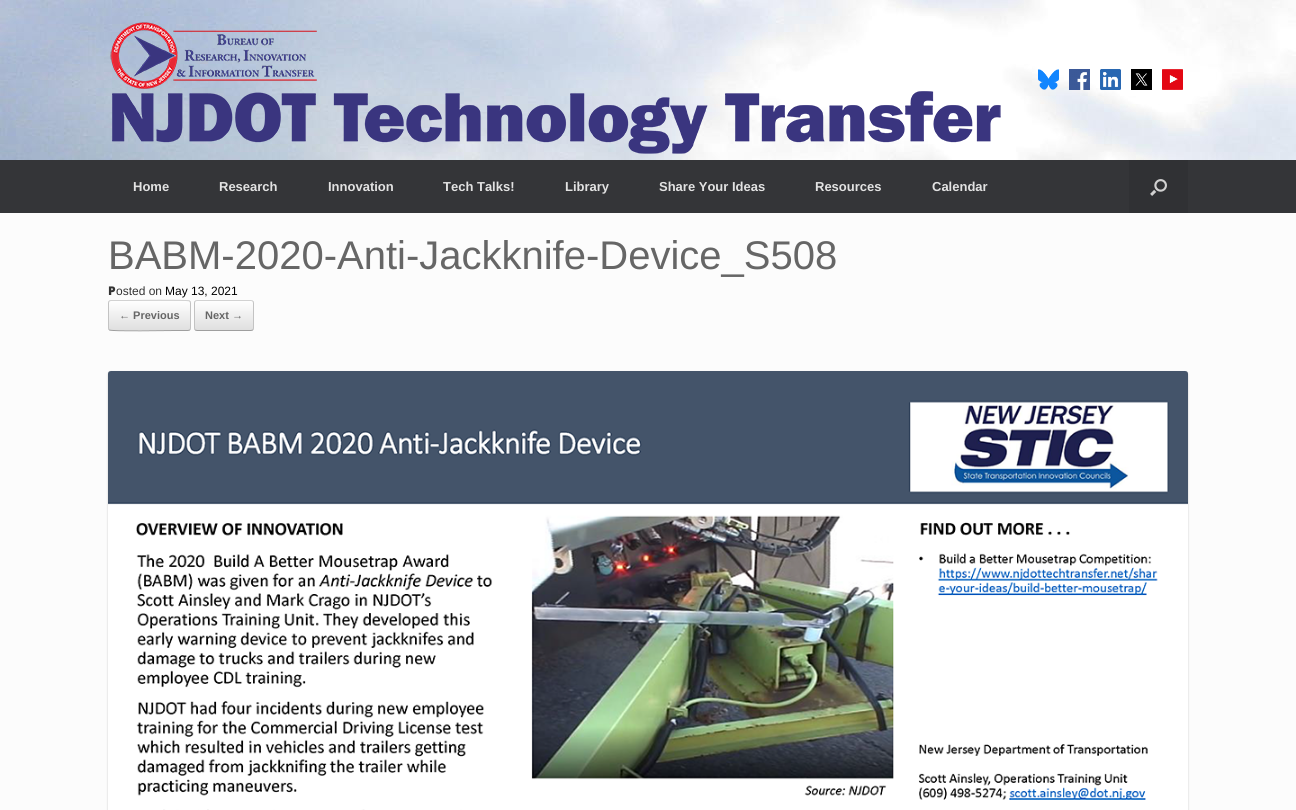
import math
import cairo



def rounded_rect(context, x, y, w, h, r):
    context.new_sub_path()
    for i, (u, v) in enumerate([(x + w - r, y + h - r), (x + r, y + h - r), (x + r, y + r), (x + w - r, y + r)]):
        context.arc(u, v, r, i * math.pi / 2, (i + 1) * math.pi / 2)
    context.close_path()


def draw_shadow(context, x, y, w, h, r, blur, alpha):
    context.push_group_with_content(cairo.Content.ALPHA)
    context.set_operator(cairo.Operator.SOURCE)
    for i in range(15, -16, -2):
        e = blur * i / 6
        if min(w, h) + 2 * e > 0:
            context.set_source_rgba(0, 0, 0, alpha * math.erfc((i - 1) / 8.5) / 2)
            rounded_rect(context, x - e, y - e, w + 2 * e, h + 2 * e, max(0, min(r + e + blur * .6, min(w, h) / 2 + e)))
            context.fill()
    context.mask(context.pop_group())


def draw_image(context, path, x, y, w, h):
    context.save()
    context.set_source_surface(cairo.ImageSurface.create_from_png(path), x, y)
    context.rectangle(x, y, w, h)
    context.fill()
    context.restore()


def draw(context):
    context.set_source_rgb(1, 1, 1)
    context.paint()
    draw_image(context, "images/1.png", 0, 0, 1296, 160)
    draw_image(context, "images/2.png", 110, 22, 891, 132)
    draw_image(context, "images/3.png", 1038, 69, 21, 21)
    draw_image(context, "images/4.png", 1069, 69, 21, 21)
    draw_image(context, "images/5.png", 1100, 69, 21, 21)
    draw_image(context, "images/6.png", 1131, 69, 21, 21)
    draw_image(context, "images/7.png", 1162, 69, 21, 21)
    context.set_source_rgb(52 / 255, 53 / 255, 56 / 255)
    context.rectangle(0, 160, 1296, 53)
    context.fill()
    context.set_source_rgb(48 / 255, 49 / 255, 52 / 255)
    context.rectangle(1129, 160, 59, 53)
    context.fill()
    draw_image(context, "images/8.png", 1150, 179, 17, 17)
    context.set_source_rgb(252 / 255, 252 / 255, 252 / 255)
    context.rectangle(0, 213, 1296, 597)
    context.fill()
    context.save()
    rounded_rect(context, 108, 300, 83, 31, 3)
    context.clip()
    gradient = cairo.LinearGradient(109, 301, 109, 272)
    gradient.add_color_stop_rgba(0, 223 / 255, 223 / 255, 223 / 255, 1)
    gradient.add_color_stop_rgba(1, 1, 1, 1, 1)
    context.set_source(gradient)
    context.rectangle(108, 300, 83, 1)
    context.fill()
    gradient = cairo.LinearGradient(109, 330, 109, 301)
    gradient.add_color_stop_rgba(0, 223 / 255, 223 / 255, 223 / 255, 1)
    gradient.add_color_stop_rgba(1, 1, 1, 1, 1)
    context.set_source(gradient)
    context.rectangle(108, 301, 83, 29)
    context.fill()
    context.restore()
    context.new_path()
    context.move_to(109, 301)
    context.line_to(111, 300.5)
    context.line_to(124, 300.5)
    context.curve_to(131, 300.5, 187.5, 299.5, 189.5, 301)
    context.line_to(190, 301)
    context.set_source_rgb(210 / 255, 210 / 255, 210 / 255)
    context.set_line_width(1)
    context.stroke()
    context.new_path()
    context.move_to(190, 301)
    context.curve_to(190, 301.5, 190.5, 302.5, 190.5, 303)
    context.line_to(190.5, 328)
    context.curve_to(190.5, 328.5, 190, 329.5, 190, 330)
    context.set_source_rgb(195 / 255, 195 / 255, 195 / 255)
    context.stroke()
    context.new_path()
    context.move_to(190, 330)
    context.line_to(188, 330.5)
    context.line_to(175, 330.5)
    context.curve_to(168, 330.5, 111.5, 331.5, 109.5, 330)
    context.line_to(109, 330)
    context.set_source_rgb(159 / 255, 159 / 255, 159 / 255)
    context.stroke()
    context.new_path()
    context.move_to(109, 330)
    context.curve_to(109, 329.5, 108.5, 328.5, 108.5, 328)
    context.line_to(108.5, 303)
    context.curve_to(108.5, 302.5, 109, 301.5, 109, 301)
    context.set_source_rgb(195 / 255, 195 / 255, 195 / 255)
    context.stroke()
    context.save()
    rounded_rect(context, 194, 300, 60, 31, 3)
    context.clip()
    gradient = cairo.LinearGradient(195, 330, 195, 301)
    gradient.add_color_stop_rgba(0, 223 / 255, 223 / 255, 223 / 255, 1)
    gradient.add_color_stop_rgba(1, 1, 1, 1, 1)
    context.set_source(gradient)
    context.rectangle(194, 301, 60, 29)
    context.fill()
    context.restore()
    context.new_path()
    context.move_to(195, 301)
    context.line_to(197, 300.5)
    context.line_to(251, 300.5)
    context.line_to(253, 301)
    context.set_source_rgb(210 / 255, 210 / 255, 210 / 255)
    context.stroke()
    context.new_path()
    context.move_to(253, 301)
    context.curve_to(253, 301.5, 253.5, 302.5, 253.5, 303)
    context.line_to(253.5, 328)
    context.curve_to(253.5, 328.5, 253, 329.5, 253, 330)
    context.set_source_rgb(195 / 255, 195 / 255, 195 / 255)
    context.stroke()
    context.new_path()
    context.move_to(253, 330)
    context.line_to(251, 330.5)
    context.line_to(197, 330.5)
    context.line_to(195, 330)
    context.set_source_rgb(159 / 255, 159 / 255, 159 / 255)
    context.stroke()
    context.new_path()
    context.move_to(195, 330)
    context.curve_to(195, 329.5, 194.5, 328.5, 194.5, 328)
    context.line_to(194.5, 303)
    context.curve_to(194.5, 302.5, 195, 301.5, 195, 301)
    context.set_source_rgb(195 / 255, 195 / 255, 195 / 255)
    context.stroke()
    context.set_source_rgb(0, 0, 0)
    draw_shadow(context, 108, 372, 1080, 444, 3, 1, 0.18)
    draw_image(context, "images/9.png", 108, 371, 1080, 439)
    context.select_font_face("Liberation Sans", cairo.FontSlant.NORMAL, cairo.FontWeight.BOLD)
    context.set_font_size(13)
    context.set_source_rgb(226 / 255, 226 / 255, 226 / 255)
    context.move_to(133, 191)
    context.show_text("Home")
    context.move_to(219, 191)
    context.show_text("Research")
    context.move_to(328, 191)
    context.show_text("Innovation")
    context.move_to(443, 191)
    context.show_text("Tech Talks!")
    context.move_to(565, 191)
    context.show_text("Library")
    context.move_to(659, 191)
    context.show_text("Share Your Ideas")
    context.move_to(815, 191)
    context.show_text("Resources")
    context.move_to(932, 191)
    context.show_text("Calendar")
    context.select_font_face("Liberation Sans")
    context.set_font_size(40)
    context.set_source_rgb(102 / 255, 102 / 255, 102 / 255)
    context.move_to(108, 269)
    context.show_text("BABM-2020-Anti-Jackknife-Device_S508")
    context.select_font_face("Noto Sans Black")
    context.set_font_size(12)
    context.set_source_rgb(51 / 255, 51 / 255, 51 / 255)
    context.move_to(108, 295)
    context.show_text("P")
    context.select_font_face("Liberation Sans")
    context.move_to(116, 295)
    context.show_text("osted on")
    context.set_source_rgb(0, 0, 0)
    context.move_to(165, 295)
    context.show_text("May 13, 2021")
    context.select_font_face("Liberation Sans", cairo.FontSlant.NORMAL, cairo.FontWeight.BOLD)
    context.set_font_size(11)
    context.set_source_rgb(102 / 255, 102 / 255, 102 / 255)
    context.move_to(119, 319)
    context.show_text("← Previous")
    context.move_to(205, 319)
    context.show_text("Next →")


surface = cairo.ImageSurface(cairo.Format.RGB24, 1296, 810)
context = cairo.Context(surface)
options = cairo.FontOptions()
options.set_hint_metrics(cairo.HintMetrics.OFF)
options.set_hint_style(cairo.HintStyle.NONE)
context.set_font_options(options)
context.set_miter_limit(4)
draw(context)
surface.write_to_png("out.png")
